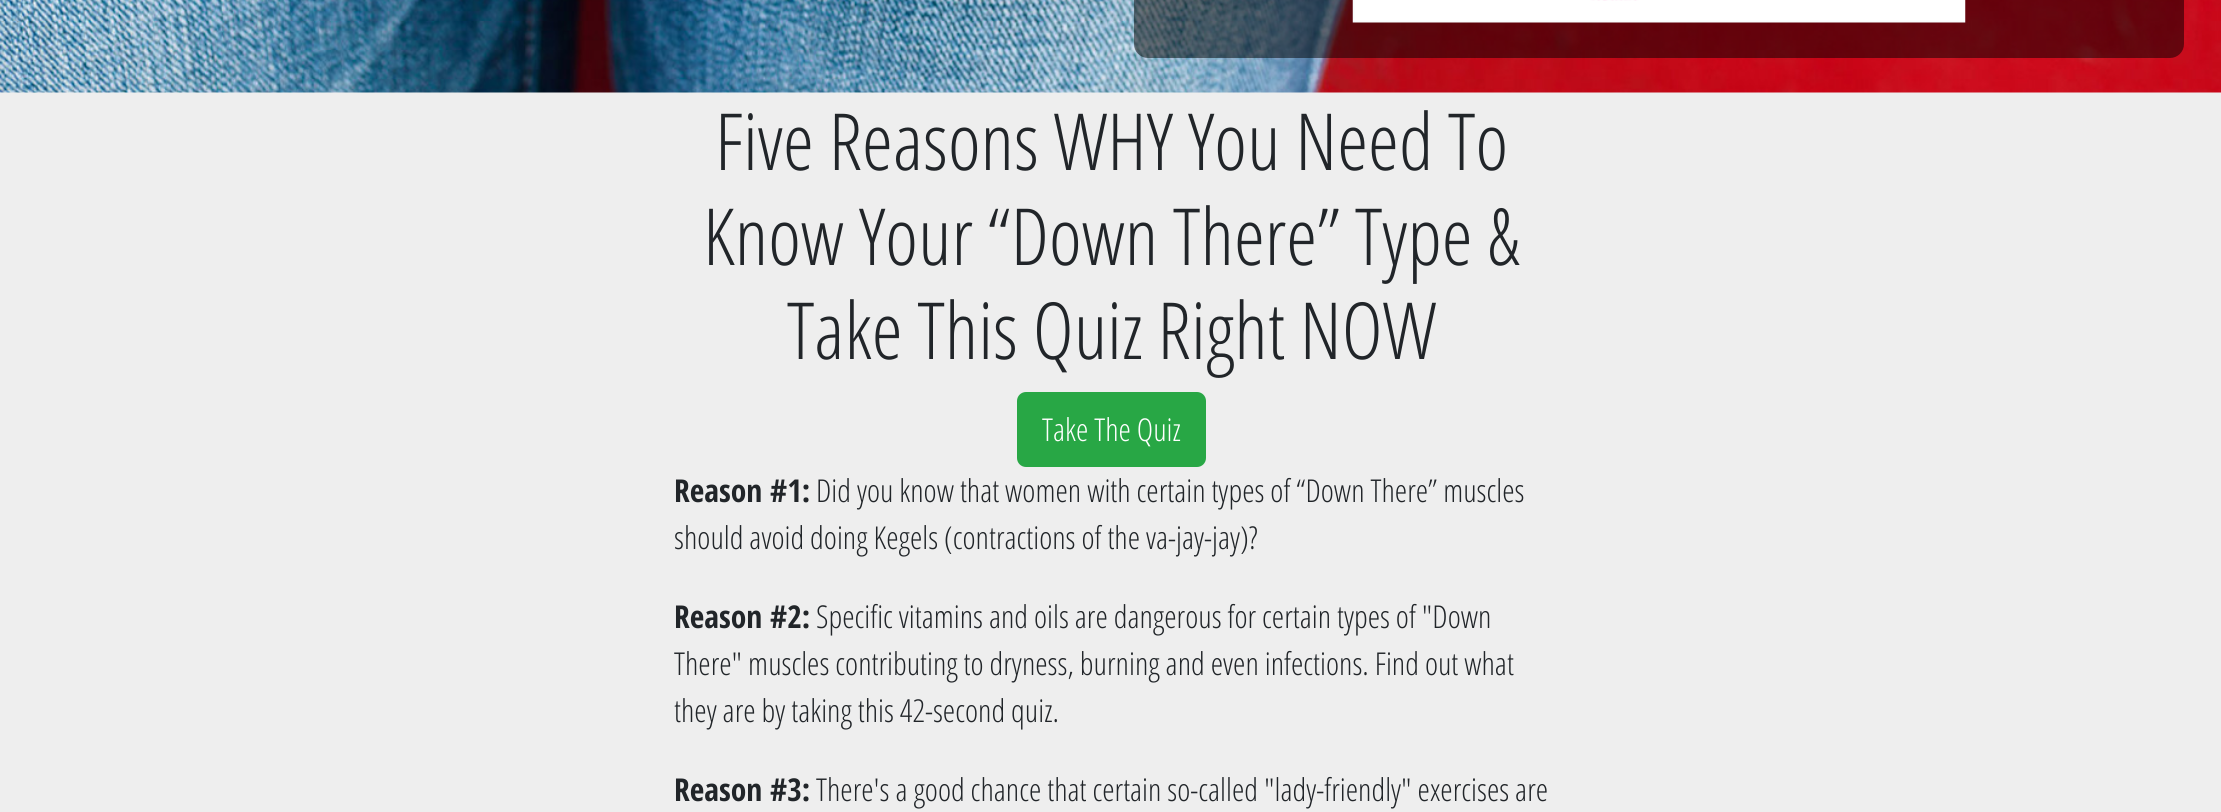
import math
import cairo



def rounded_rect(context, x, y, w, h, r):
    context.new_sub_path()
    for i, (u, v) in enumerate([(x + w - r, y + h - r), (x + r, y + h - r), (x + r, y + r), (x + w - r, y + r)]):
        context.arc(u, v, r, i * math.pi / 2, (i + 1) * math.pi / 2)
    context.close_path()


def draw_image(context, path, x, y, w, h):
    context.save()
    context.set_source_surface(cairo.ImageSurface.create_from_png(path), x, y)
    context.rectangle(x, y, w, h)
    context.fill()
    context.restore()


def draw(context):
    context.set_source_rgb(238 / 255, 238 / 255, 238 / 255)
    context.paint()
    draw_image(context, "images/1.png", 0, 0, 2221, 93)
    context.set_source_rgba(0, 0, 0, 0.5)
    rounded_rect(context, 1134, -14, 1050, 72, 14)
    context.fill()
    draw_image(context, "images/2.png", 1352, 0, 614, 23)
    context.set_source_rgb(40 / 255, 167 / 255, 69 / 255)
    rounded_rect(context, 1018, 393, 187, 73, 8)
    context.fill_preserve()
    context.stroke()
    context.select_font_face("Open Sans Condensed Light")
    context.set_font_size(78.75)
    context.set_source_rgb(33 / 255, 37 / 255, 41 / 255)
    context.move_to(715, 170)
    context.show_text("Five Reasons WHY You Need To")
    context.move_to(703, 265)
    context.show_text("Know Your “Down There” Type &")
    context.move_to(787, 359)
    context.show_text("Take This Quiz Right NOW")
    context.set_font_size(31.5)
    context.set_source_rgb(1, 1, 1)
    context.move_to(1042, 441)
    context.show_text("Take The Quiz")
    context.select_font_face("Open Sans Condensed", cairo.FontSlant.NORMAL, cairo.FontWeight.BOLD)
    context.set_source_rgb(33 / 255, 37 / 255, 41 / 255)
    context.move_to(674, 502)
    context.show_text("Reason #1:")
    context.select_font_face("Open Sans Condensed Light")
    context.move_to(816, 502)
    context.show_text("Did you know that women with certain types of “Down There” muscles")
    context.move_to(674, 549)
    context.show_text("should avoid doing Kegels (contractions of the va-jay-jay)?")
    context.select_font_face("Open Sans Condensed", cairo.FontSlant.NORMAL, cairo.FontWeight.BOLD)
    context.move_to(674, 628)
    context.show_text("Reason #2:")
    context.select_font_face("Open Sans Condensed Light")
    context.move_to(816, 628)
    context.show_text("Specific vitamins and oils are dangerous for certain types of \"Down")
    context.move_to(674, 675)
    context.show_text("There\" muscles contributing to dryness, burning and even infections. Find out what")
    context.move_to(674, 722)
    context.show_text("they are by taking this 42-second quiz.")
    context.select_font_face("Open Sans Condensed", cairo.FontSlant.NORMAL, cairo.FontWeight.BOLD)
    context.move_to(674, 801)
    context.show_text("Reason #3:")
    context.select_font_face("Open Sans Condensed Light")
    context.move_to(816, 801)
    context.show_text("There's a good chance that certain so-called \"lady-friendly\" exercises are")


surface = cairo.ImageSurface(cairo.Format.RGB24, 2221, 812)
context = cairo.Context(surface)
options = cairo.FontOptions()
options.set_hint_metrics(cairo.HintMetrics.OFF)
options.set_hint_style(cairo.HintStyle.NONE)
context.set_font_options(options)
context.set_miter_limit(4)
draw(context)
surface.write_to_png("out.png")
